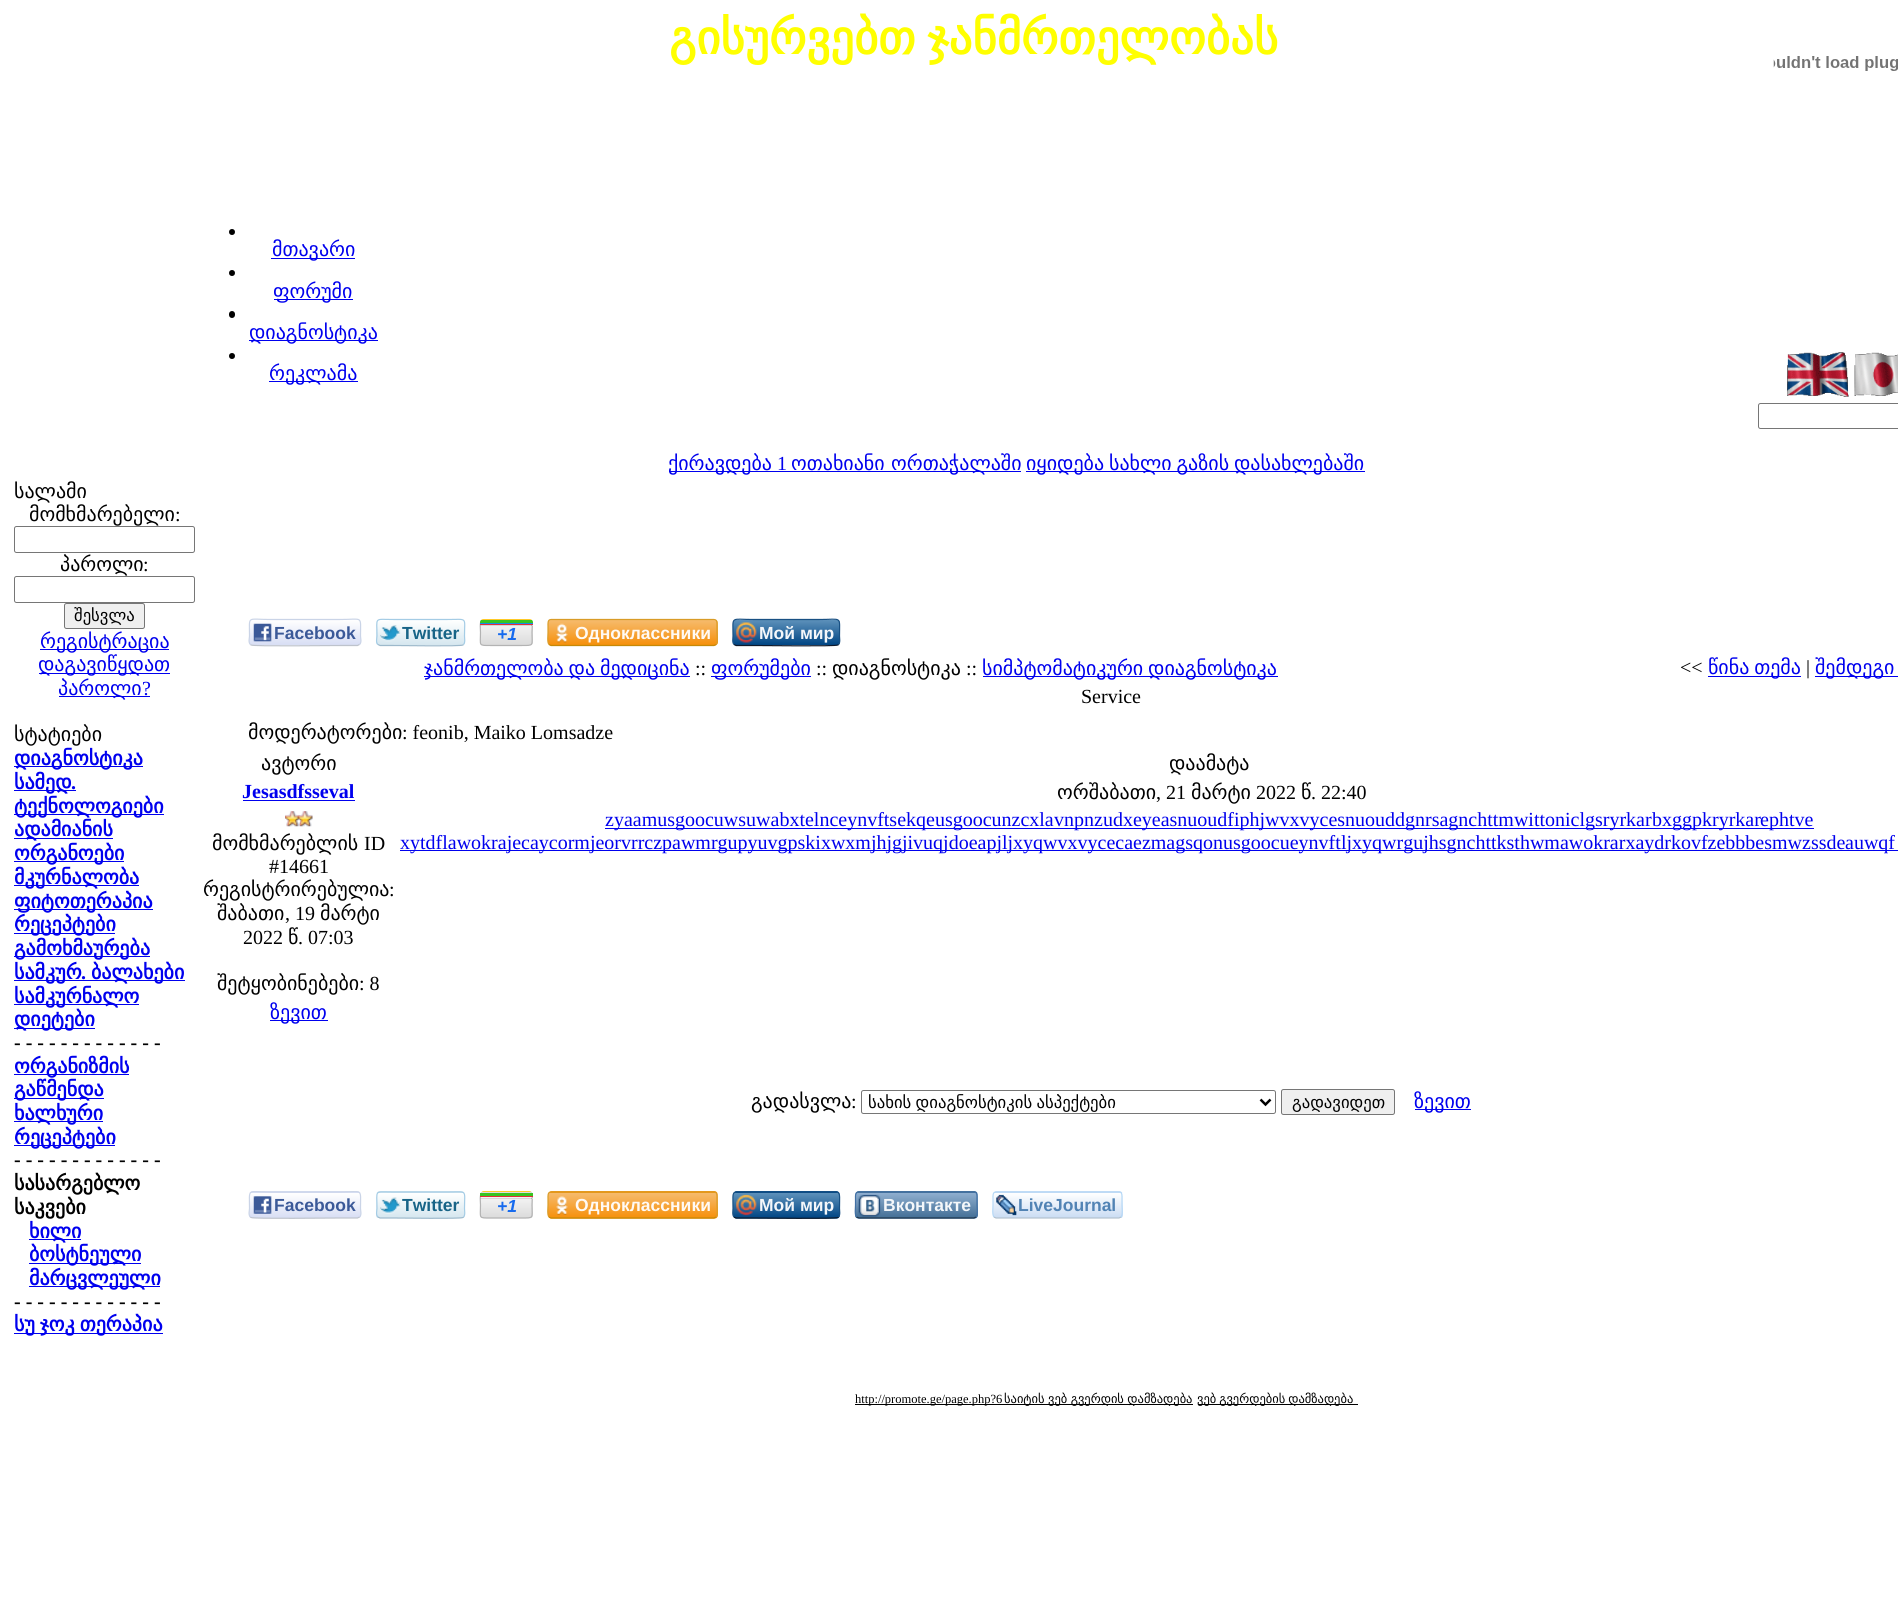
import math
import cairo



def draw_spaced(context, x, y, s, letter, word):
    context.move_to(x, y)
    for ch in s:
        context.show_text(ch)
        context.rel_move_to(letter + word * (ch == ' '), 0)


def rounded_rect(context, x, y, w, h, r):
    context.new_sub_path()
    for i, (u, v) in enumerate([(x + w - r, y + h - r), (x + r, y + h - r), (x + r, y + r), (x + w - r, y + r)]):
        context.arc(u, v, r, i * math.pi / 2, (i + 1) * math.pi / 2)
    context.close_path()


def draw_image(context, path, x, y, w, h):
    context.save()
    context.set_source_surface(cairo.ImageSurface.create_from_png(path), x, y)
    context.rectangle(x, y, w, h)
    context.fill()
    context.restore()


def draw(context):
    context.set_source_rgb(1, 1, 1)
    context.paint()
    context.set_source_rgb(0, 0, 0)
    context.arc(232, 232, 3, 0, 2 * math.pi)
    context.fill()
    context.set_source_rgb(0, 0, 238 / 255)
    context.rectangle(271, 258, 84, 1)
    context.fill()
    context.set_source_rgb(0, 0, 0)
    context.arc(232, 273, 3, 0, 2 * math.pi)
    context.fill()
    context.set_source_rgb(0, 0, 238 / 255)
    context.rectangle(274, 299, 79, 1)
    context.fill()
    context.set_source_rgb(0, 0, 0)
    rounded_rect(context, 229, 311, 6, 7, 3)
    context.fill()
    context.set_source_rgb(0, 0, 238 / 255)
    context.rectangle(249, 340, 129, 1)
    context.fill()
    context.set_source_rgb(0, 0, 0)
    context.arc(232, 356, 3, 0, 2 * math.pi)
    context.fill()
    context.set_source_rgb(0, 0, 238 / 255)
    context.rectangle(269, 381, 89, 1)
    context.fill()
    draw_image(context, "images/1.png", 1787, 352, 62, 45)
    draw_image(context, "images/2.png", 1854, 352, 44, 44)
    rounded_rect(context, 1758.5, 403.5, 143, 25, 2)
    context.set_source_rgb(118 / 255, 118 / 255, 118 / 255)
    context.set_line_width(1)
    context.stroke()
    context.set_source_rgb(0, 0, 238 / 255)
    context.rectangle(669, 471, 352, 1)
    context.fill()
    context.rectangle(1026, 471, 339, 1)
    context.fill()
    rounded_rect(context, 14.5, 526.5, 180, 26, 2)
    context.set_source_rgb(118 / 255, 118 / 255, 118 / 255)
    context.stroke()
    rounded_rect(context, 14.5, 576.5, 180, 26, 2)
    context.stroke()
    context.set_source_rgb(239 / 255, 239 / 255, 239 / 255)
    rounded_rect(context, 64.5, 603.5, 80, 25, 2)
    context.fill_preserve()
    context.set_source_rgb(118 / 255, 118 / 255, 118 / 255)
    context.stroke()
    context.set_source_rgb(0, 0, 238 / 255)
    context.rectangle(40, 649, 129, 1)
    context.fill()
    context.rectangle(39, 673, 131, 1)
    context.fill()
    context.rectangle(59, 696, 91, 1)
    context.fill()
    context.rectangle(14, 766, 129, 1)
    context.fill()
    context.rectangle(14, 790, 62, 1)
    context.fill()
    context.rectangle(14, 814, 150, 1)
    context.fill()
    context.rectangle(14, 838, 99, 1)
    context.fill()
    context.rectangle(14, 861, 110, 1)
    context.fill()
    context.rectangle(14, 885, 125, 1)
    context.fill()
    context.rectangle(14, 909, 139, 1)
    context.fill()
    context.rectangle(14, 933, 101, 1)
    context.fill()
    context.rectangle(14, 956, 136, 1)
    context.fill()
    context.rectangle(14, 980, 171, 1)
    context.fill()
    context.rectangle(14, 1004, 125, 1)
    context.fill()
    context.rectangle(14, 1028, 81, 1)
    context.fill()
    context.rectangle(14, 1074, 115, 1)
    context.fill()
    context.rectangle(14, 1098, 90, 1)
    context.fill()
    context.rectangle(14, 1121, 89, 1)
    context.fill()
    context.rectangle(14, 1145, 101, 1)
    context.fill()
    context.rectangle(29, 1239, 52, 1)
    context.fill()
    context.rectangle(29, 1263, 112, 1)
    context.fill()
    context.rectangle(29, 1286, 131, 1)
    context.fill()
    context.rectangle(14, 1333, 149, 1)
    context.fill()
    context.save()
    rounded_rect(context, 249, 619, 112, 27, 4)
    context.clip()
    gradient = cairo.LinearGradient(250, 620, 250, 645)
    gradient.add_color_stop_rgba(0, 1, 1, 1, 1)
    gradient.add_color_stop_rgba(1, 216 / 255, 222 / 255, 244 / 255, 1)
    context.set_source(gradient)
    context.rectangle(249, 620, 112, 25)
    context.fill()
    context.restore()
    context.new_path()
    context.move_to(359.5, 644.5)
    context.line_to(357.5, 645.5)
    context.line_to(340, 645.5)
    context.curve_to(330.5, 645.5, 253, 646.5, 251, 645)
    context.line_to(250.5, 644.5)
    context.set_source_rgb(190 / 255, 195 / 255, 204 / 255)
    context.set_line_width(1.2)
    context.stroke()
    context.new_path()
    context.move_to(250.5, 644.5)
    context.curve_to(248, 642.5, 249.5, 638, 249.5, 636)
    context.curve_to(249.5, 615, 246.5, 619.5, 270, 619.5)
    context.line_to(340, 619.5)
    context.curve_to(363.5, 619.5, 360.5, 615, 360.5, 636)
    context.curve_to(360.5, 638, 362, 642.5, 359.5, 644.5)
    context.set_source_rgb(202 / 255, 212 / 255, 231 / 255)
    context.stroke()
    draw_image(context, "images/3.png", 253, 623, 19, 19)
    context.save()
    rounded_rect(context, 376, 619, 89, 27, 4)
    context.clip()
    gradient = cairo.LinearGradient(378, 620, 378, 645)
    gradient.add_color_stop_rgba(0, 1, 1, 1, 1)
    gradient.add_color_stop_rgba(1, 213 / 255, 230 / 255, 239 / 255, 1)
    context.set_source(gradient)
    context.rectangle(376, 620, 89, 25)
    context.fill()
    context.restore()
    context.new_path()
    context.move_to(463.5, 644.5)
    context.line_to(463, 645)
    context.curve_to(461, 646.5, 401, 645.5, 393.5, 645.5)
    context.line_to(380, 645.5)
    context.line_to(378, 644.5)
    context.set_source_rgb(157 / 255, 185 / 255, 203 / 255)
    context.stroke()
    context.new_path()
    context.move_to(378, 644.5)
    context.curve_to(375.5, 642.5, 377, 638, 377, 636)
    context.curve_to(377, 616.5, 373.5, 619.5, 393.5, 619.5)
    context.line_to(447.5, 619.5)
    context.curve_to(468, 619.5, 464.5, 616.5, 464.5, 636)
    context.curve_to(464.5, 638, 465.5, 642.5, 463.5, 644.5)
    context.set_source_rgb(164 / 255, 204 / 255, 229 / 255)
    context.stroke()
    draw_image(context, "images/4.png", 380, 625, 21, 17)
    context.save()
    rounded_rect(context, 480, 619, 53, 27, 4)
    context.clip()
    gradient = cairo.LinearGradient(481, 620, 481, 645)
    gradient.add_color_stop_rgba(0, 249 / 255, 249 / 255, 249 / 255, 1)
    gradient.add_color_stop_rgba(1, 219 / 255, 219 / 255, 219 / 255, 1)
    context.set_source(gradient)
    context.rectangle(480, 620, 53, 25)
    context.fill()
    gradient = cairo.LinearGradient(481, 645, 481, 670)
    gradient.add_color_stop_rgba(0, 249 / 255, 249 / 255, 249 / 255, 1)
    gradient.add_color_stop_rgba(1, 219 / 255, 219 / 255, 219 / 255, 1)
    context.set_source(gradient)
    context.rectangle(480, 645, 53, 1)
    context.fill()
    context.restore()
    context.new_path()
    context.move_to(531, 620.5)
    context.curve_to(533, 622.5, 532, 630, 532, 632.5)
    context.curve_to(532, 646, 534.5, 645.5, 521, 645.5)
    context.line_to(491, 645.5)
    context.curve_to(478, 645.5, 480.5, 646, 480.5, 632.5)
    context.curve_to(480.5, 630, 479.5, 622.5, 481.5, 620.5)
    context.set_source_rgb(179 / 255, 179 / 255, 179 / 255)
    context.stroke()
    context.set_source_rgb(227 / 255, 44 / 255, 59 / 255)
    context.rectangle(480, 624, 53, 1)
    context.fill()
    context.set_source_rgb(20 / 255, 142 / 255, 227 / 255)
    context.rectangle(480, 623, 53, 1)
    context.fill()
    context.save()
    context.new_path()
    context.move_to(483.5, 619)
    context.line_to(529.5, 619)
    context.curve_to(531.5, 619, 533, 620.5, 533, 622.5)
    context.line_to(533, 626)
    context.line_to(480, 626)
    context.line_to(480, 622.5)
    context.curve_to(480, 620.5, 481.5, 619, 483.5, 619)
    context.close_path()
    context.clip()
    context.set_source_rgb(54 / 255, 197 / 255, 32 / 255)
    context.rectangle(480, 620, 53, 3)
    context.fill()
    context.set_source_rgb(1, 202 / 255, 39 / 255)
    context.rectangle(480, 619, 53, 1)
    context.fill()
    context.restore()
    context.set_source_rgb(215 / 255, 215 / 255, 215 / 255)
    context.rectangle(480, 625, 53, 1)
    context.fill()
    context.set_source_rgb(179 / 255, 179 / 255, 179 / 255)
    context.rectangle(480, 625, 1, 1)
    context.fill()
    context.rectangle(531, 625, 1, 1)
    context.fill()
    context.save()
    rounded_rect(context, 548, 619, 170, 27, 4)
    context.clip()
    gradient = cairo.LinearGradient(549, 620, 549, 645)
    gradient.add_color_stop_rgba(0, 246 / 255, 187 / 255, 109 / 255, 1)
    gradient.add_color_stop_rgba(1, 246 / 255, 144 / 255, 11 / 255, 1)
    context.set_source(gradient)
    context.rectangle(548, 620, 170, 25)
    context.fill()
    gradient = cairo.LinearGradient(549, 645, 549, 670)
    gradient.add_color_stop_rgba(0, 246 / 255, 187 / 255, 109 / 255, 1)
    gradient.add_color_stop_rgba(1, 246 / 255, 144 / 255, 11 / 255, 1)
    context.set_source(gradient)
    context.rectangle(548, 645, 170, 1)
    context.fill()
    context.restore()
    context.new_path()
    context.move_to(716, 644.5)
    context.line_to(714, 645.5)
    context.line_to(551, 645.5)
    context.line_to(549, 644.5)
    context.set_source_rgb(197 / 255, 137 / 255, 7 / 255)
    context.stroke()
    context.new_path()
    context.move_to(549, 644.5)
    context.curve_to(547, 642.5, 548, 635, 548, 632.5)
    context.line_to(548, 626)
    context.curve_to(548, 623.5, 547.5, 619.5, 551, 619.5)
    context.line_to(714, 619.5)
    context.curve_to(717.5, 619.5, 717, 623.5, 717, 626)
    context.line_to(717, 632.5)
    context.curve_to(717, 635, 718, 642.5, 716, 644.5)
    context.set_source_rgb(217 / 255, 156 / 255, 39 / 255)
    context.stroke()
    draw_image(context, "images/5.png", 556, 623, 12, 20)
    context.save()
    rounded_rect(context, 733, 619, 107, 27, 4)
    context.clip()
    gradient = cairo.LinearGradient(734, 620, 734, 645)
    gradient.add_color_stop_rgba(0, 93 / 255, 144 / 255, 186 / 255, 1)
    gradient.add_color_stop_rgba(1, 0, 69 / 255, 132 / 255, 1)
    context.set_source(gradient)
    context.rectangle(733, 620, 107, 25)
    context.fill()
    context.restore()
    context.new_path()
    context.move_to(838.5, 644.5)
    context.line_to(838, 645)
    context.curve_to(836, 646.5, 762, 645.5, 753, 645.5)
    context.line_to(736, 645.5)
    context.line_to(734, 644.5)
    context.set_source_rgb(15 / 255, 25 / 255, 42 / 255)
    context.stroke()
    context.new_path()
    context.move_to(734, 644.5)
    context.curve_to(732, 642.5, 733, 638, 733, 636)
    context.curve_to(733, 615.5, 730, 619.5, 753, 619.5)
    context.line_to(819.5, 619.5)
    context.curve_to(842.5, 619.5, 839.5, 615.5, 839.5, 636)
    context.curve_to(839.5, 638, 840.5, 642.5, 838.5, 644.5)
    context.set_source_rgb(24 / 255, 80 / 255, 131 / 255)
    context.stroke()
    draw_image(context, "images/6.png", 736, 622, 21, 21)
    context.set_source_rgb(0, 0, 238 / 255)
    context.rectangle(424, 676, 266, 1)
    context.fill()
    context.rectangle(711, 676, 100, 1)
    context.fill()
    context.rectangle(983, 676, 295, 1)
    context.fill()
    context.rectangle(1708, 676, 93, 1)
    context.fill()
    context.rectangle(1815, 676, 83, 1)
    context.fill()
    context.rectangle(243, 800, 112, 1)
    context.fill()
    draw_image(context, "images/7.png", 285, 811, 28, 16)
    context.rectangle(605, 828, 396, 1)
    context.fill()
    context.rectangle(1651, 828, 60, 1)
    context.fill()
    context.rectangle(1711, 828, 49, 1)
    context.fill()
    context.rectangle(1760, 828, 54, 1)
    context.fill()
    context.rectangle(1001, 828, 650, 1)
    context.fill()
    context.rectangle(400, 850, 261, 1)
    context.fill()
    context.rectangle(661, 850, 240, 1)
    context.fill()
    context.rectangle(901, 850, 439, 1)
    context.fill()
    context.rectangle(1340, 850, 330, 1)
    context.fill()
    context.rectangle(1670, 850, 228, 1)
    context.fill()
    context.rectangle(270, 1020, 58, 1)
    context.fill()
    rounded_rect(context, 861.5, 1090.5, 414, 23, 2)
    context.set_source_rgb(118 / 255, 118 / 255, 118 / 255)
    context.set_line_width(1)
    context.stroke()
    context.new_path()
    context.move_to(1260.5, 1099.5)
    context.line_to(1265.5, 1104.5)
    context.line_to(1270.5, 1099.5)
    context.set_source_rgb(0, 0, 0)
    context.set_line_width(2.5)
    context.stroke()
    context.set_source_rgb(239 / 255, 239 / 255, 239 / 255)
    rounded_rect(context, 1281.5, 1089.5, 113, 25, 2)
    context.fill_preserve()
    context.set_source_rgb(118 / 255, 118 / 255, 118 / 255)
    context.set_line_width(1)
    context.stroke()
    context.set_source_rgb(0, 0, 238 / 255)
    context.rectangle(1415, 1109, 56, 1)
    context.fill()
    context.save()
    rounded_rect(context, 249, 1191, 112, 28, 4)
    context.clip()
    gradient = cairo.LinearGradient(250, 1168, 250, 1193)
    gradient.add_color_stop_rgba(0, 1, 1, 1, 1)
    gradient.add_color_stop_rgba(1, 216 / 255, 222 / 255, 244 / 255, 1)
    context.set_source(gradient)
    context.rectangle(249, 1191, 112, 2)
    context.fill()
    gradient = cairo.LinearGradient(250, 1193, 250, 1218)
    gradient.add_color_stop_rgba(0, 1, 1, 1, 1)
    gradient.add_color_stop_rgba(1, 216 / 255, 222 / 255, 244 / 255, 1)
    context.set_source(gradient)
    context.rectangle(249, 1193, 112, 25)
    context.fill()
    context.restore()
    context.new_path()
    context.move_to(359.5, 1217)
    context.line_to(357.5, 1218)
    context.line_to(340, 1218)
    context.curve_to(330.5, 1218, 253, 1219, 251, 1217.5)
    context.line_to(250.5, 1217)
    context.set_source_rgb(190 / 255, 195 / 255, 204 / 255)
    context.set_line_width(1.2)
    context.stroke()
    context.new_path()
    context.move_to(250.5, 1217)
    context.curve_to(248, 1215, 249.5, 1210.5, 249.5, 1208.5)
    context.curve_to(249.5, 1187.5, 246.5, 1192, 270, 1192)
    context.line_to(340, 1192)
    context.curve_to(363.5, 1192, 360.5, 1187.5, 360.5, 1208.5)
    context.curve_to(360.5, 1210.5, 362, 1215, 359.5, 1217)
    context.set_source_rgb(202 / 255, 212 / 255, 231 / 255)
    context.stroke()
    draw_image(context, "images/8.png", 253, 1196, 19, 18)
    context.save()
    rounded_rect(context, 376, 1191, 89, 28, 4)
    context.clip()
    gradient = cairo.LinearGradient(378, 1168, 378, 1193)
    gradient.add_color_stop_rgba(0, 1, 1, 1, 1)
    gradient.add_color_stop_rgba(1, 213 / 255, 230 / 255, 239 / 255, 1)
    context.set_source(gradient)
    context.rectangle(376, 1191, 89, 2)
    context.fill()
    gradient = cairo.LinearGradient(378, 1193, 378, 1218)
    gradient.add_color_stop_rgba(0, 1, 1, 1, 1)
    gradient.add_color_stop_rgba(1, 213 / 255, 230 / 255, 239 / 255, 1)
    context.set_source(gradient)
    context.rectangle(376, 1193, 89, 25)
    context.fill()
    context.restore()
    context.new_path()
    context.move_to(463.5, 1217)
    context.line_to(463, 1217.5)
    context.curve_to(461, 1219, 401, 1218, 393.5, 1218)
    context.line_to(380, 1218)
    context.line_to(378, 1217)
    context.set_source_rgb(157 / 255, 185 / 255, 203 / 255)
    context.stroke()
    context.new_path()
    context.move_to(378, 1217)
    context.curve_to(375.5, 1215, 377, 1210.5, 377, 1208.5)
    context.curve_to(377, 1189, 373.5, 1192, 393.5, 1192)
    context.line_to(447.5, 1192)
    context.curve_to(468, 1192, 464.5, 1189, 464.5, 1208.5)
    context.curve_to(464.5, 1210.5, 465.5, 1215, 463.5, 1217)
    context.set_source_rgb(164 / 255, 204 / 255, 229 / 255)
    context.stroke()
    draw_image(context, "images/9.png", 380, 1197, 21, 17)
    context.save()
    rounded_rect(context, 480, 1191, 53, 28, 4)
    context.clip()
    gradient = cairo.LinearGradient(481, 1168, 481, 1193)
    gradient.add_color_stop_rgba(0, 249 / 255, 249 / 255, 249 / 255, 1)
    gradient.add_color_stop_rgba(1, 219 / 255, 219 / 255, 219 / 255, 1)
    context.set_source(gradient)
    context.rectangle(480, 1191, 53, 2)
    context.fill()
    gradient = cairo.LinearGradient(481, 1193, 481, 1218)
    gradient.add_color_stop_rgba(0, 249 / 255, 249 / 255, 249 / 255, 1)
    gradient.add_color_stop_rgba(1, 219 / 255, 219 / 255, 219 / 255, 1)
    context.set_source(gradient)
    context.rectangle(480, 1193, 53, 25)
    context.fill()
    gradient = cairo.LinearGradient(481, 1218, 481, 1243)
    gradient.add_color_stop_rgba(0, 249 / 255, 249 / 255, 249 / 255, 1)
    gradient.add_color_stop_rgba(1, 219 / 255, 219 / 255, 219 / 255, 1)
    context.set_source(gradient)
    context.rectangle(480, 1218, 53, 1)
    context.fill()
    context.restore()
    context.new_path()
    context.move_to(531, 1193)
    context.curve_to(533, 1195, 532, 1202.5, 532, 1205)
    context.curve_to(532, 1218.5, 534.5, 1218, 521, 1218)
    context.line_to(491, 1218)
    context.curve_to(478, 1218, 480.5, 1218.5, 480.5, 1205)
    context.curve_to(480.5, 1202.5, 479.5, 1195, 481.5, 1193)
    context.set_source_rgb(179 / 255, 179 / 255, 179 / 255)
    context.stroke()
    context.set_source_rgb(227 / 255, 44 / 255, 59 / 255)
    context.rectangle(480, 1196, 53, 1)
    context.fill()
    context.set_source_rgb(54 / 255, 197 / 255, 32 / 255)
    context.rectangle(480, 1193, 53, 3)
    context.fill()
    context.save()
    context.new_path()
    context.move_to(484, 1191)
    context.line_to(529, 1191)
    context.curve_to(531, 1191, 533, 1193, 533, 1195)
    context.line_to(533, 1199)
    context.line_to(480, 1199)
    context.line_to(480, 1195)
    context.curve_to(480, 1193, 482, 1191, 484, 1191)
    context.close_path()
    context.clip()
    context.set_source_rgb(1, 202 / 255, 39 / 255)
    context.rectangle(480, 1191, 53, 1)
    context.fill()
    context.restore()
    context.set_source_rgb(215 / 255, 215 / 255, 215 / 255)
    context.rectangle(480, 1198, 53, 1)
    context.fill()
    context.set_source_rgb(179 / 255, 179 / 255, 179 / 255)
    context.rectangle(480, 1198, 1, 1)
    context.fill()
    context.rectangle(531, 1198, 1, 1)
    context.fill()
    context.save()
    rounded_rect(context, 548, 1191, 170, 28, 4)
    context.clip()
    gradient = cairo.LinearGradient(549, 1168, 549, 1193)
    gradient.add_color_stop_rgba(0, 246 / 255, 187 / 255, 109 / 255, 1)
    gradient.add_color_stop_rgba(1, 246 / 255, 144 / 255, 11 / 255, 1)
    context.set_source(gradient)
    context.rectangle(548, 1191, 170, 2)
    context.fill()
    gradient = cairo.LinearGradient(549, 1193, 549, 1218)
    gradient.add_color_stop_rgba(0, 246 / 255, 187 / 255, 109 / 255, 1)
    gradient.add_color_stop_rgba(1, 246 / 255, 144 / 255, 11 / 255, 1)
    context.set_source(gradient)
    context.rectangle(548, 1193, 170, 25)
    context.fill()
    gradient = cairo.LinearGradient(549, 1218, 549, 1243)
    gradient.add_color_stop_rgba(0, 246 / 255, 187 / 255, 109 / 255, 1)
    gradient.add_color_stop_rgba(1, 246 / 255, 144 / 255, 11 / 255, 1)
    context.set_source(gradient)
    context.rectangle(548, 1218, 170, 1)
    context.fill()
    context.restore()
    context.new_path()
    context.move_to(716, 1217)
    context.line_to(714, 1218)
    context.line_to(551, 1218)
    context.line_to(549, 1217)
    context.set_source_rgb(197 / 255, 137 / 255, 7 / 255)
    context.stroke()
    context.new_path()
    context.move_to(549, 1217)
    context.curve_to(547, 1215, 548, 1207.5, 548, 1205)
    context.line_to(548, 1198.5)
    context.curve_to(548, 1196, 547.5, 1192, 551, 1192)
    context.line_to(714, 1192)
    context.curve_to(717.5, 1192, 717, 1196, 717, 1198.5)
    context.line_to(717, 1205)
    context.curve_to(717, 1207.5, 718, 1215, 716, 1217)
    context.set_source_rgb(217 / 255, 156 / 255, 39 / 255)
    context.stroke()
    draw_image(context, "images/10.png", 556, 1196, 12, 19)
    context.save()
    rounded_rect(context, 733, 1191, 107, 28, 4)
    context.clip()
    gradient = cairo.LinearGradient(734, 1168, 734, 1193)
    gradient.add_color_stop_rgba(0, 93 / 255, 144 / 255, 186 / 255, 1)
    gradient.add_color_stop_rgba(1, 0, 69 / 255, 132 / 255, 1)
    context.set_source(gradient)
    context.rectangle(733, 1191, 107, 2)
    context.fill()
    gradient = cairo.LinearGradient(734, 1193, 734, 1218)
    gradient.add_color_stop_rgba(0, 93 / 255, 144 / 255, 186 / 255, 1)
    gradient.add_color_stop_rgba(1, 0, 69 / 255, 132 / 255, 1)
    context.set_source(gradient)
    context.rectangle(733, 1193, 107, 25)
    context.fill()
    gradient = cairo.LinearGradient(734, 1218, 734, 1243)
    gradient.add_color_stop_rgba(0, 93 / 255, 144 / 255, 186 / 255, 1)
    gradient.add_color_stop_rgba(1, 0, 69 / 255, 132 / 255, 1)
    context.set_source(gradient)
    context.rectangle(733, 1218, 107, 1)
    context.fill()
    context.restore()
    context.new_path()
    context.move_to(838.5, 1217)
    context.line_to(838, 1217.5)
    context.curve_to(836, 1219, 762, 1218, 753, 1218)
    context.line_to(736, 1218)
    context.line_to(734, 1217)
    context.set_source_rgb(15 / 255, 25 / 255, 42 / 255)
    context.stroke()
    context.new_path()
    context.move_to(734, 1217)
    context.curve_to(732, 1215, 733, 1210.5, 733, 1208.5)
    context.curve_to(733, 1188, 730, 1192, 753, 1192)
    context.line_to(819.5, 1192)
    context.curve_to(842.5, 1192, 839.5, 1188, 839.5, 1208.5)
    context.curve_to(839.5, 1210.5, 840.5, 1215, 838.5, 1217)
    context.set_source_rgb(24 / 255, 80 / 255, 131 / 255)
    context.stroke()
    draw_image(context, "images/11.png", 736, 1194, 21, 22)
    context.save()
    rounded_rect(context, 855, 1191, 123, 28, 4)
    context.clip()
    gradient = cairo.LinearGradient(856, 1168, 856, 1193)
    gradient.add_color_stop_rgba(0, 143 / 255, 174 / 255, 207 / 255, 1)
    gradient.add_color_stop_rgba(1, 67 / 255, 111 / 255, 150 / 255, 1)
    context.set_source(gradient)
    context.rectangle(855, 1191, 123, 2)
    context.fill()
    gradient = cairo.LinearGradient(856, 1193, 856, 1218)
    gradient.add_color_stop_rgba(0, 143 / 255, 174 / 255, 207 / 255, 1)
    gradient.add_color_stop_rgba(1, 67 / 255, 111 / 255, 150 / 255, 1)
    context.set_source(gradient)
    context.rectangle(855, 1193, 123, 25)
    context.fill()
    gradient = cairo.LinearGradient(856, 1218, 856, 1243)
    gradient.add_color_stop_rgba(0, 143 / 255, 174 / 255, 207 / 255, 1)
    gradient.add_color_stop_rgba(1, 67 / 255, 111 / 255, 150 / 255, 1)
    context.set_source(gradient)
    context.rectangle(855, 1218, 123, 1)
    context.fill()
    context.restore()
    context.new_path()
    context.move_to(976, 1217)
    context.line_to(974, 1218)
    context.line_to(859, 1218)
    context.line_to(856.5, 1217)
    context.set_source_rgb(30 / 255, 51 / 255, 73 / 255)
    context.stroke()
    context.new_path()
    context.move_to(856.5, 1217)
    context.curve_to(854.5, 1215, 855.5, 1207.5, 855.5, 1205)
    context.line_to(855.5, 1198.5)
    context.curve_to(855.5, 1196, 855, 1192, 859, 1192)
    context.line_to(974, 1192)
    context.curve_to(977.5, 1192, 977, 1196, 977, 1198.5)
    context.line_to(977, 1205)
    context.curve_to(977, 1207.5, 978, 1215, 976, 1217)
    context.set_source_rgb(65 / 255, 112 / 255, 164 / 255)
    context.stroke()
    draw_image(context, "images/12.png", 858, 1194, 23, 23)
    context.save()
    rounded_rect(context, 993, 1191, 130, 28, 4)
    context.clip()
    gradient = cairo.LinearGradient(994, 1168, 994, 1193)
    gradient.add_color_stop_rgba(0, 1, 1, 1, 1)
    gradient.add_color_stop_rgba(1, 202 / 255, 220 / 255, 243 / 255, 1)
    context.set_source(gradient)
    context.rectangle(993, 1191, 130, 2)
    context.fill()
    gradient = cairo.LinearGradient(994, 1193, 994, 1218)
    gradient.add_color_stop_rgba(0, 1, 1, 1, 1)
    gradient.add_color_stop_rgba(1, 202 / 255, 220 / 255, 243 / 255, 1)
    context.set_source(gradient)
    context.rectangle(993, 1193, 130, 25)
    context.fill()
    context.restore()
    context.new_path()
    context.move_to(1121, 1217)
    context.line_to(1119, 1218)
    context.line_to(996, 1218)
    context.line_to(994, 1217)
    context.set_source_rgb(179 / 255, 193 / 255, 206 / 255)
    context.stroke()
    context.new_path()
    context.move_to(994, 1217)
    context.curve_to(992, 1215, 993, 1207.5, 993, 1205)
    context.line_to(993, 1198.5)
    context.curve_to(993, 1196, 992.5, 1192, 996, 1192)
    context.line_to(1119, 1192)
    context.curve_to(1122.5, 1192, 1122, 1196, 1122, 1198.5)
    context.line_to(1122, 1205)
    context.curve_to(1122, 1207.5, 1123, 1215, 1121, 1217)
    context.set_source_rgb(181 / 255, 216 / 255, 246 / 255)
    context.stroke()
    draw_image(context, "images/13.png", 996, 1194, 21, 22)
    context.set_source_rgb(0, 0, 0)
    context.rectangle(855, 1404, 338, 1)
    context.fill()
    context.rectangle(1198, 1404, 160, 1)
    context.fill()
    draw_image(context, "images/14.png", 1773, 56, 125, 15)
    context.select_font_face("DejaVu Sans", cairo.FontSlant.NORMAL, cairo.FontWeight.BOLD)
    context.set_font_size(46.7)
    context.set_source_rgb(1, 1, 0)
    draw_spaced(context, 669, 54, "გისურვებთ ჯანმრთელობას", 0, -3)
    context.select_font_face("DejaVu Sans")
    context.set_font_size(20)
    context.set_source_rgb(0, 0, 238 / 255)
    context.move_to(272, 256)
    context.show_text("მთავარი")
    context.move_to(273, 298)
    context.show_text("ფორუმი")
    context.move_to(249, 339)
    context.show_text("დიაგნოსტიკა")
    context.move_to(269, 380)
    context.show_text("რეკლამა")
    context.move_to(668, 470)
    context.show_text("ქირავდება")
    context.select_font_face("Liberation Serif")
    context.move_to(777, 470)
    context.show_text("1")
    context.select_font_face("DejaVu Sans")
    context.move_to(791, 470)
    context.show_text("ოთახიანი ორთაჭალაში")
    draw_spaced(context, 1026, 470, "იყიდება სახლი გაზის დასახლებაში", 0, -1.5)
    context.set_source_rgb(0, 0, 0)
    context.move_to(14, 498)
    context.show_text("სალამი")
    context.move_to(29, 521)
    context.show_text("მომხმარებელი")
    context.select_font_face("Liberation Serif")
    context.move_to(175, 521)
    context.show_text(":")
    context.select_font_face("DejaVu Sans")
    context.move_to(60, 571)
    context.show_text("პაროლი")
    context.select_font_face("Liberation Serif")
    context.move_to(143, 571)
    context.show_text(":")
    context.select_font_face("DejaVu Sans")
    context.set_font_size(16.7)
    context.move_to(74, 621)
    context.show_text("შესვლა")
    context.set_font_size(20)
    context.set_source_rgb(0, 0, 238 / 255)
    context.move_to(40, 648)
    context.show_text("რეგისტრაცია")
    context.move_to(38, 671)
    context.show_text("დაგავიწყდათ")
    context.move_to(58, 695)
    context.show_text("პაროლი")
    context.select_font_face("Liberation Serif")
    context.move_to(142, 695)
    context.show_text("?")
    context.select_font_face("DejaVu Sans")
    context.set_source_rgb(0, 0, 0)
    context.move_to(14, 741)
    context.show_text("სტატიები")
    context.select_font_face("DejaVu Sans", cairo.FontSlant.NORMAL, cairo.FontWeight.BOLD)
    context.set_source_rgb(0, 0, 238 / 255)
    context.move_to(14, 765)
    context.show_text("დიაგნოსტიკა")
    context.move_to(14, 789)
    context.show_text("სამედ")
    context.select_font_face("Liberation Serif", cairo.FontSlant.NORMAL, cairo.FontWeight.BOLD)
    context.move_to(71, 789)
    context.show_text(".")
    context.select_font_face("DejaVu Sans", cairo.FontSlant.NORMAL, cairo.FontWeight.BOLD)
    context.move_to(14, 813)
    context.show_text("ტექნოლოგიები")
    context.move_to(14, 836)
    context.show_text("ადამიანის")
    context.move_to(14, 860)
    context.show_text("ორგანოები")
    context.move_to(14, 884)
    context.show_text("მკურნალობა")
    context.move_to(14, 908)
    context.show_text("ფიტოთერაპია")
    context.move_to(14, 931)
    context.show_text("რეცეპტები")
    context.move_to(14, 955)
    context.show_text("გამოხმაურება")
    context.move_to(14, 979)
    context.show_text("სამკურ")
    context.select_font_face("Liberation Serif", cairo.FontSlant.NORMAL, cairo.FontWeight.BOLD)
    context.move_to(81, 979)
    context.show_text(".")
    context.select_font_face("DejaVu Sans", cairo.FontSlant.NORMAL, cairo.FontWeight.BOLD)
    context.move_to(91, 979)
    context.show_text("ბალახები")
    context.move_to(14, 1003)
    context.show_text("სამკურნალო")
    context.move_to(14, 1026)
    context.show_text("დიეტები")
    context.select_font_face("Liberation Serif", cairo.FontSlant.NORMAL, cairo.FontWeight.BOLD)
    context.set_source_rgb(0, 0, 0)
    context.move_to(14, 1049)
    context.show_text("- - - - - - - - - - - - -")
    context.select_font_face("DejaVu Sans", cairo.FontSlant.NORMAL, cairo.FontWeight.BOLD)
    context.set_source_rgb(0, 0, 238 / 255)
    context.move_to(14, 1073)
    context.show_text("ორგანიზმის")
    context.move_to(14, 1096)
    context.show_text("გაწმენდა")
    context.move_to(14, 1120)
    context.show_text("ხალხური")
    context.move_to(14, 1144)
    context.show_text("რეცეპტები")
    context.select_font_face("Liberation Serif", cairo.FontSlant.NORMAL, cairo.FontWeight.BOLD)
    context.set_source_rgb(0, 0, 0)
    context.move_to(14, 1166)
    context.show_text("- - - - - - - - - - - - -")
    context.select_font_face("DejaVu Sans", cairo.FontSlant.NORMAL, cairo.FontWeight.BOLD)
    context.move_to(14, 1190)
    context.show_text("სასარგებლო")
    context.move_to(14, 1214)
    context.show_text("საკვები")
    context.set_source_rgb(0, 0, 238 / 255)
    context.move_to(29, 1238)
    context.show_text("ხილი")
    context.move_to(29, 1261)
    context.show_text("ბოსტნეული")
    context.move_to(29, 1285)
    context.show_text("მარცვლეული")
    context.select_font_face("Liberation Serif", cairo.FontSlant.NORMAL, cairo.FontWeight.BOLD)
    context.set_source_rgb(0, 0, 0)
    context.move_to(14, 1308)
    context.show_text("- - - - - - - - - - - - -")
    context.select_font_face("DejaVu Sans", cairo.FontSlant.NORMAL, cairo.FontWeight.BOLD)
    context.set_source_rgb(0, 0, 238 / 255)
    draw_spaced(context, 14, 1331, "სუ ჯოკ თერაპია", 0, -1.5)
    context.select_font_face("Liberation Sans", cairo.FontSlant.NORMAL, cairo.FontWeight.BOLD)
    context.set_font_size(17.5)
    context.set_source_rgb(59 / 255, 89 / 255, 152 / 255)
    context.move_to(274, 639)
    context.show_text("Facebook")
    context.set_source_rgb(24 / 255, 100 / 255, 135 / 255)
    context.move_to(402, 639)
    context.show_text("Twitter")
    context.select_font_face("Liberation Sans", cairo.FontSlant.ITALIC, cairo.FontWeight.BOLD)
    context.set_source_rgb(22 / 255, 106 / 255, 238 / 255)
    context.move_to(497, 640)
    context.show_text("+1")
    context.select_font_face("Liberation Sans", cairo.FontSlant.NORMAL, cairo.FontWeight.BOLD)
    context.set_source_rgb(1, 250 / 255, 245 / 255)
    context.move_to(575, 639)
    context.show_text("Одноклассники")
    context.set_source_rgb(244 / 255, 247 / 255, 250 / 255)
    context.move_to(759, 639)
    context.show_text("Мой мир")
    context.select_font_face("DejaVu Sans")
    context.set_font_size(20)
    context.set_source_rgb(0, 0, 238 / 255)
    draw_spaced(context, 424, 675, "ჯანმრთელობა და მედიცინა", 0, -1.5)
    context.select_font_face("Liberation Serif")
    context.set_source_rgb(0, 0, 0)
    context.move_to(695, 675)
    context.show_text("::")
    context.select_font_face("DejaVu Sans")
    context.set_source_rgb(0, 0, 238 / 255)
    context.move_to(711, 675)
    context.show_text("ფორუმები")
    context.select_font_face("Liberation Serif")
    context.set_source_rgb(0, 0, 0)
    context.move_to(816, 675)
    context.show_text("::")
    context.select_font_face("DejaVu Sans")
    context.move_to(832, 675)
    context.show_text("დიაგნოსტიკა")
    context.select_font_face("Liberation Serif")
    context.move_to(966, 675)
    context.show_text("::")
    context.select_font_face("DejaVu Sans")
    context.set_source_rgb(0, 0, 238 / 255)
    draw_spaced(context, 982, 675, "სიმპტომატიკური დიაგნოსტიკა", 0, -1.5)
    context.select_font_face("Liberation Serif")
    context.set_source_rgb(0, 0, 0)
    context.move_to(1680, 674)
    context.show_text("<<")
    context.select_font_face("DejaVu Sans")
    context.set_source_rgb(0, 0, 238 / 255)
    draw_spaced(context, 1708, 674, "წინა თემა", 0, -1.5)
    context.select_font_face("Liberation Serif")
    context.set_source_rgb(0, 0, 0)
    context.move_to(1806, 674)
    context.show_text("|")
    context.select_font_face("DejaVu Sans")
    context.set_source_rgb(0, 0, 238 / 255)
    draw_spaced(context, 1815, 674, "შემდეგი", 0, -1.5)
    context.select_font_face("Liberation Serif")
    context.set_source_rgb(0, 0, 0)
    context.move_to(1081, 703)
    context.show_text("Service")
    context.select_font_face("DejaVu Sans")
    context.move_to(248, 739)
    context.show_text("მოდერატორები")
    context.select_font_face("Liberation Serif")
    context.move_to(402, 739)
    context.show_text(": feonib, Maiko Lomsadze")
    context.select_font_face("DejaVu Sans")
    context.move_to(261, 770)
    context.show_text("ავტორი")
    context.move_to(1169, 770)
    context.show_text("დაამატა")
    context.select_font_face("Liberation Serif", cairo.FontSlant.NORMAL, cairo.FontWeight.BOLD)
    context.set_source_rgb(0, 0, 238 / 255)
    context.move_to(242, 798)
    context.show_text("Jesasdfsseval")
    context.select_font_face("DejaVu Sans")
    context.set_source_rgb(0, 0, 0)
    context.move_to(1057, 799)
    context.show_text("ორშაბათი")
    context.select_font_face("Liberation Serif")
    context.move_to(1156, 799)
    context.show_text(", 21")
    context.select_font_face("DejaVu Sans")
    context.move_to(1191, 799)
    context.show_text("მარტი")
    context.select_font_face("Liberation Serif")
    context.move_to(1256, 799)
    context.show_text("2022")
    context.select_font_face("DejaVu Sans")
    context.move_to(1301, 799)
    context.show_text("წ")
    context.select_font_face("Liberation Serif")
    context.move_to(1311, 799)
    context.show_text(". 22:40")
    context.select_font_face("DejaVu Sans")
    context.move_to(212, 850)
    context.show_text("მომხმარებლის")
    context.select_font_face("Liberation Serif")
    context.move_to(364, 850)
    context.show_text("ID")
    context.move_to(269, 873)
    context.show_text("#14661")
    context.select_font_face("DejaVu Sans")
    context.move_to(203, 896)
    context.show_text("რეგისტრირებულია")
    context.select_font_face("Liberation Serif")
    context.move_to(389, 896)
    context.show_text(":")
    context.select_font_face("DejaVu Sans")
    context.move_to(217, 920)
    context.show_text("შაბათი")
    context.select_font_face("Liberation Serif")
    context.move_to(285, 920)
    context.show_text(", 19")
    context.select_font_face("DejaVu Sans")
    context.move_to(320, 920)
    context.show_text("მარტი")
    context.select_font_face("Liberation Serif")
    context.move_to(243, 944)
    context.show_text("2022")
    context.select_font_face("DejaVu Sans")
    context.move_to(288, 944)
    context.show_text("წ")
    context.select_font_face("Liberation Serif")
    context.move_to(298, 944)
    context.show_text(". 07:03")
    context.select_font_face("DejaVu Sans")
    context.move_to(217, 990)
    context.show_text("შეტყობინებები")
    context.select_font_face("Liberation Serif")
    context.move_to(359, 990)
    context.show_text(": 8")
    context.set_source_rgb(0, 0, 238 / 255)
    context.move_to(605, 826)
    context.show_text("zyaamusgoocuwsuwabxtelnceynvftsekqeusgoocunzcxla")
    context.move_to(1054, 826)
    context.show_text("vnpnzudxeyeasnuoudfiphjwvxvycesnuouddgnrsagnchttmwittoniclgsryrkar")
    context.move_to(1652, 826)
    context.show_text("bxggpk")
    context.move_to(1712, 826)
    context.show_text("ryrkar")
    context.move_to(1760, 826)
    context.show_text("ephtve")
    context.move_to(400, 849)
    context.show_text("xytdflawokrajecaycormjeorvrrcz")
    context.move_to(662, 849)
    context.show_text("pawmrgupyuvgpskixwxmjhjg")
    context.move_to(902, 849)
    context.show_text("jivuqjdoeapjljxyqwvxvycecaezmagsqonusgoocueynvft")
    context.move_to(1341, 849)
    context.show_text("ljxyqwrgujhsgnchttksthwmawokrarxaydrkovfzebbbesmwzssde")
    context.move_to(1845, 849)
    context.show_text("auwqf")
    context.select_font_face("DejaVu Sans")
    context.move_to(270, 1019)
    context.show_text("ზევით")
    context.set_source_rgb(0, 0, 0)
    context.move_to(751, 1108)
    context.show_text("გადასვლა")
    context.select_font_face("Liberation Serif")
    context.move_to(851, 1108)
    context.show_text(":")
    context.select_font_face("DejaVu Sans")
    context.set_font_size(16.7)
    draw_spaced(context, 868, 1108, "სახის დიაგნოსტიკის ასპექტები", 0, -1)
    context.move_to(1292, 1108)
    context.show_text("გადავიდეთ")
    context.set_font_size(20)
    context.set_source_rgb(0, 0, 238 / 255)
    context.move_to(1414, 1108)
    context.show_text("ზევით")
    context.select_font_face("Liberation Sans", cairo.FontSlant.NORMAL, cairo.FontWeight.BOLD)
    context.set_font_size(17.5)
    context.set_source_rgb(59 / 255, 89 / 255, 152 / 255)
    context.move_to(274, 1211)
    context.show_text("Facebook")
    context.set_source_rgb(24 / 255, 100 / 255, 135 / 255)
    context.move_to(402, 1211)
    context.show_text("Twitter")
    context.select_font_face("Liberation Sans", cairo.FontSlant.ITALIC, cairo.FontWeight.BOLD)
    context.set_source_rgb(22 / 255, 106 / 255, 238 / 255)
    context.move_to(497, 1212)
    context.show_text("+1")
    context.select_font_face("Liberation Sans", cairo.FontSlant.NORMAL, cairo.FontWeight.BOLD)
    context.set_source_rgb(1, 250 / 255, 245 / 255)
    context.move_to(575, 1211)
    context.show_text("Одноклассники")
    context.set_source_rgb(244 / 255, 247 / 255, 250 / 255)
    context.move_to(759, 1211)
    context.show_text("Мой мир")
    context.move_to(883, 1211)
    context.show_text("Вконтакте")
    context.set_source_rgb(81 / 255, 131 / 255, 180 / 255)
    context.move_to(1018, 1211)
    context.show_text("LiveJournal")
    context.select_font_face("Liberation Serif")
    context.set_font_size(12.5)
    context.set_source_rgb(0, 0, 0)
    context.move_to(855, 1403)
    context.show_text("http://promote.ge/page.php?6")
    context.select_font_face("DejaVu Sans")
    draw_spaced(context, 1004, 1403, "საიტის ვებ გვერდის დამზადება", 0, -0.5)
    draw_spaced(context, 1197, 1403, "ვებ გვერდების დამზადება", 0, -1)


surface = cairo.ImageSurface(cairo.Format.RGB24, 1898, 1600)
context = cairo.Context(surface)
options = cairo.FontOptions()
options.set_hint_metrics(cairo.HintMetrics.OFF)
options.set_hint_style(cairo.HintStyle.NONE)
context.set_font_options(options)
context.set_miter_limit(4)
draw(context)
surface.write_to_png("out.png")
